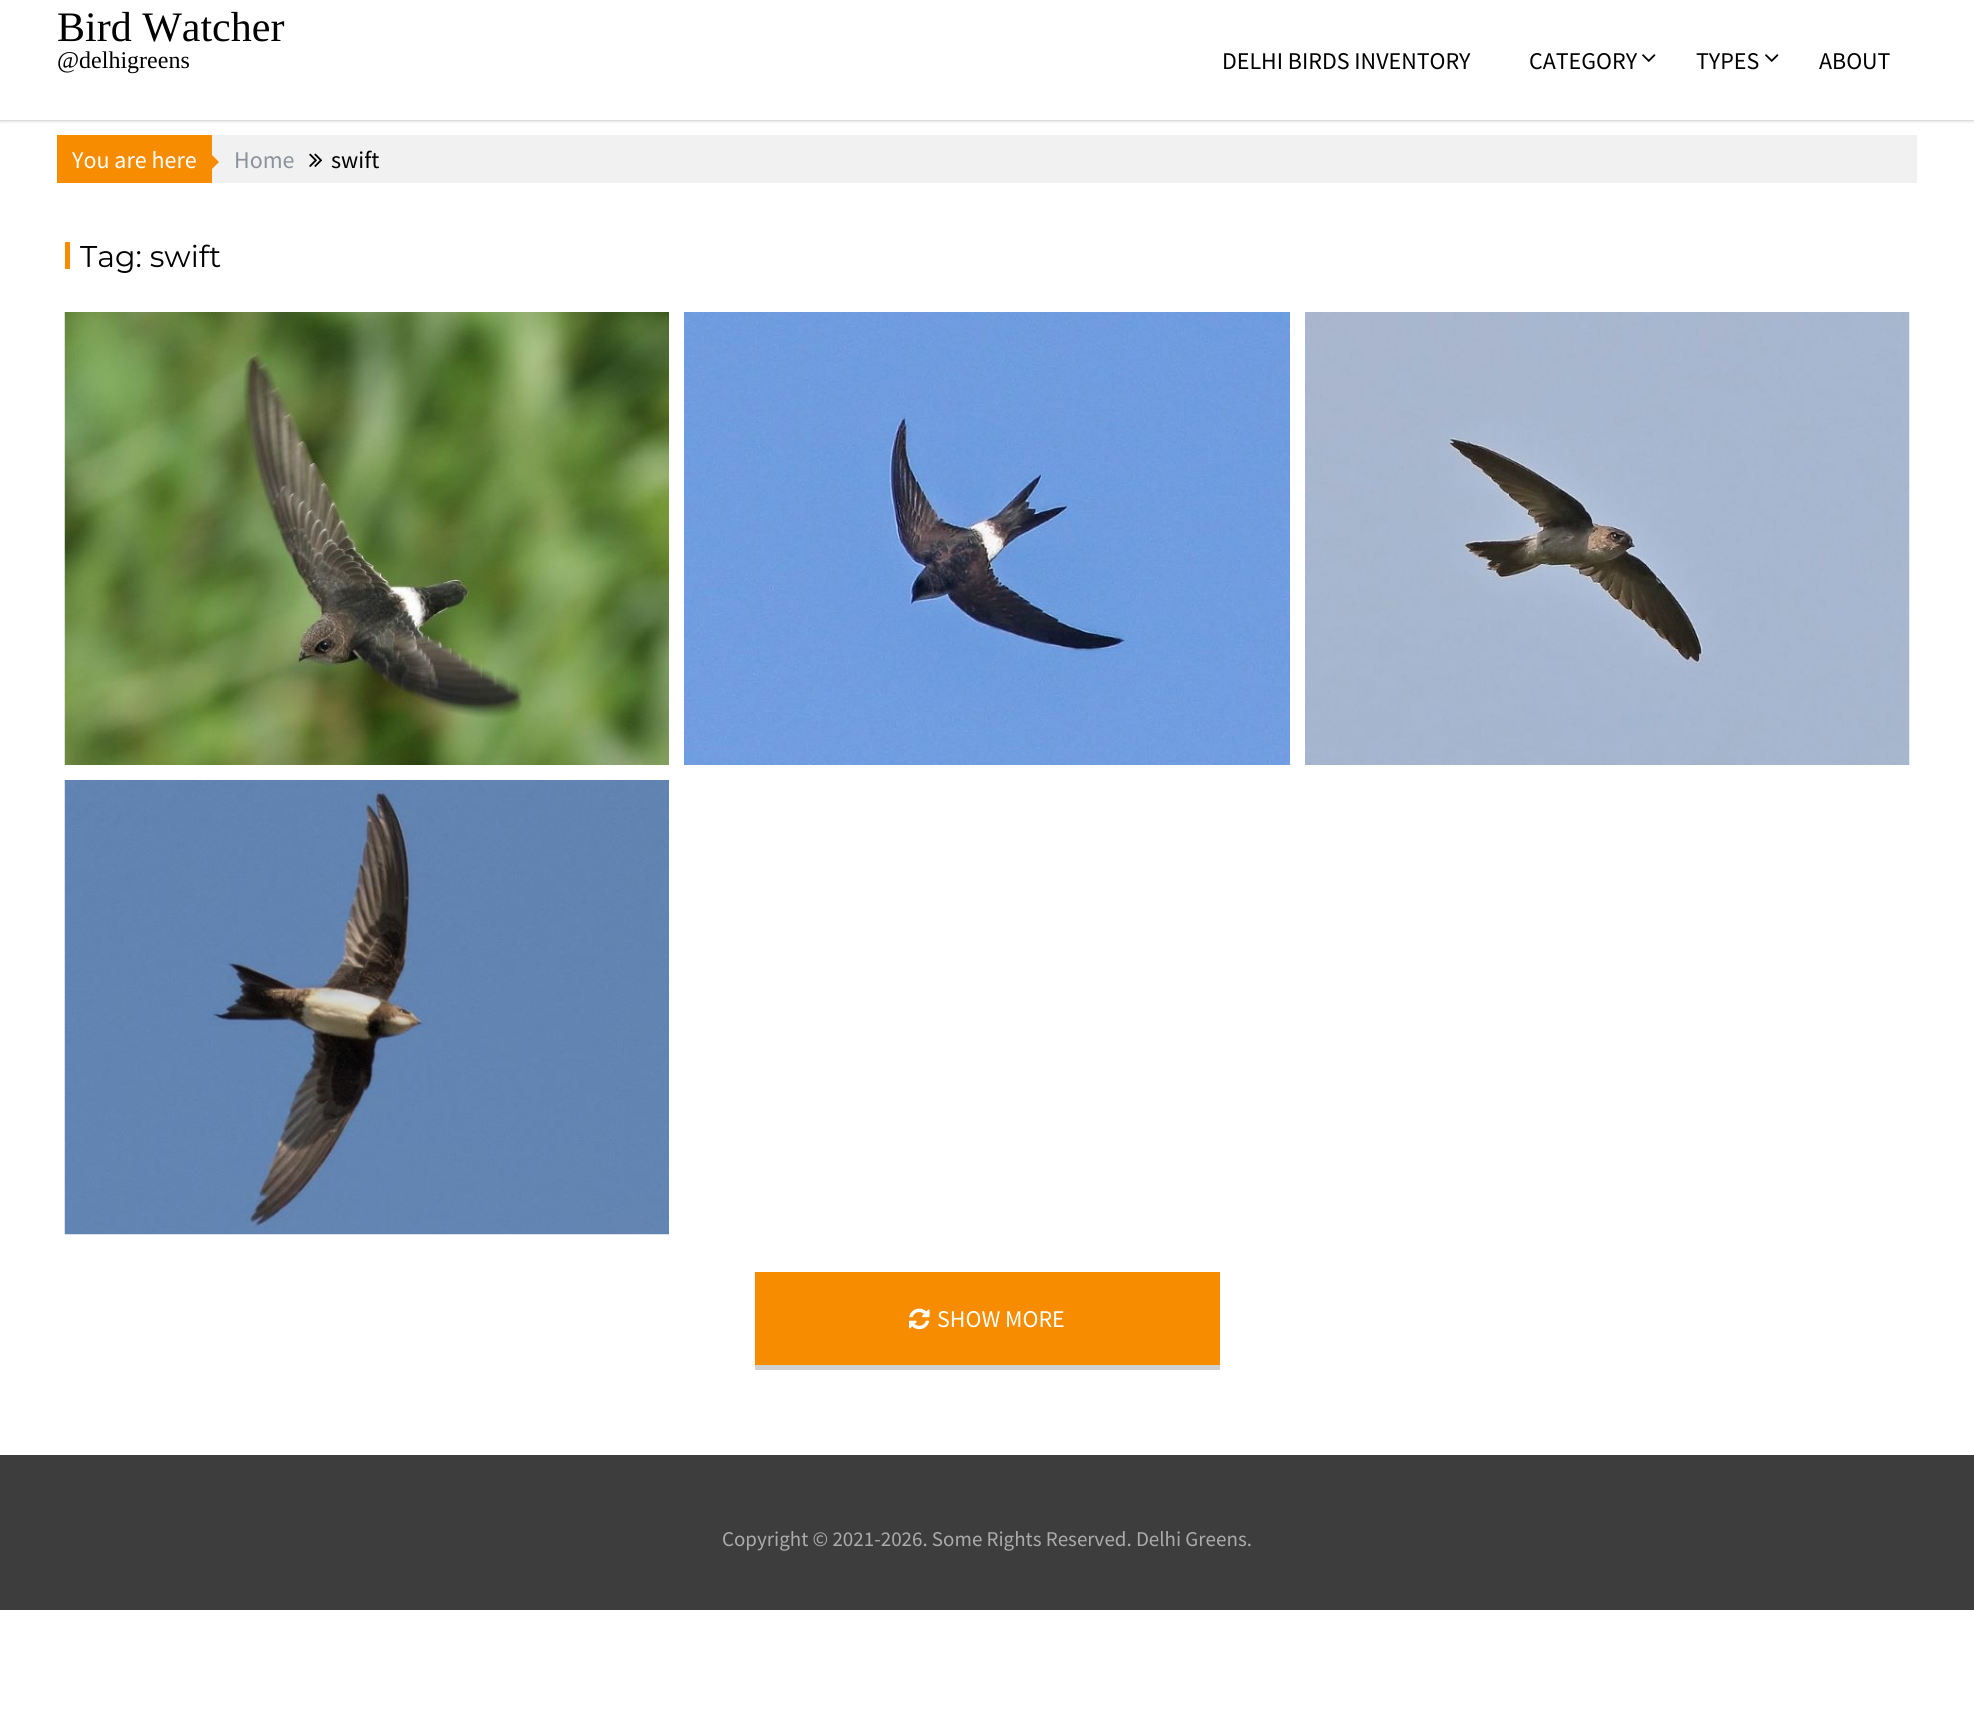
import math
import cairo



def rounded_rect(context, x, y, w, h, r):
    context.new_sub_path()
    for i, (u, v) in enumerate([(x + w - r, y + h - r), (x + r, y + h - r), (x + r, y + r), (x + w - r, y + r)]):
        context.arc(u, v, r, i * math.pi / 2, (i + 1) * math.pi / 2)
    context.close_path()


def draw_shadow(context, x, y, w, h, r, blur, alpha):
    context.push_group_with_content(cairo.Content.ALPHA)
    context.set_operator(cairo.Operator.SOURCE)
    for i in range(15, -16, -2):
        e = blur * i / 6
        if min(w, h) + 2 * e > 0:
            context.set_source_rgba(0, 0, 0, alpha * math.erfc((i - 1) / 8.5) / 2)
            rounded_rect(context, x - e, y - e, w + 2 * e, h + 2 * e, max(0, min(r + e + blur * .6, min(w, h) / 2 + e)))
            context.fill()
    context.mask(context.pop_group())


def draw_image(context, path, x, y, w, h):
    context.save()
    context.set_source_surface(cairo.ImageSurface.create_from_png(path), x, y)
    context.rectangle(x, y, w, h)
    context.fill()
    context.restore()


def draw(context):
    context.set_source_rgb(1, 1, 1)
    context.paint()
    context.save()
    context.rectangle(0, 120, 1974, 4)
    context.clip()
    context.set_source_rgb(170 / 255, 170 / 255, 170 / 255)
    draw_shadow(context, 0, 0, 1974, 120, 0, 2, 1)
    context.restore()
    draw_image(context, "images/1.png", 1642, 54, 14, 8)
    draw_image(context, "images/1.png", 1765, 54, 14, 8)
    context.set_source_rgb(241 / 255, 241 / 255, 241 / 255)
    context.rectangle(212, 135, 1705, 48)
    context.fill()
    context.set_source_rgb(248 / 255, 140 / 255, 0)
    context.rectangle(57, 135, 155, 48)
    context.fill()
    context.new_path()
    context.move_to(211.5, 169.5)
    context.line_to(211.5, 154.5)
    context.line_to(219, 162)
    context.close_path()
    context.fill()
    draw_image(context, "images/2.png", 309, 153, 14, 14)
    context.rectangle(65, 242, 5, 27)
    context.fill()
    draw_image(context, "images/3.png", 64, 312, 605, 453)
    draw_image(context, "images/4.png", 684, 312, 606, 453)
    draw_image(context, "images/5.png", 1305, 312, 605, 453)
    draw_image(context, "images/6.png", 64, 780, 605, 455)
    context.set_source_rgb(208 / 255, 208 / 255, 208 / 255)
    context.new_path()
    context.move_to(755, 1365)
    context.line_to(755, 1370)
    context.line_to(1220, 1370)
    context.line_to(1220, 1277)
    context.line_to(1220, 1365)
    context.close_path()
    context.fill()
    context.set_source_rgb(248 / 255, 140 / 255, 0)
    context.rectangle(755, 1272, 465, 93)
    context.fill()
    draw_image(context, "images/7.png", 909, 1308, 21, 22)
    context.set_source_rgb(61 / 255, 61 / 255, 61 / 255)
    context.rectangle(0, 1455, 1974, 155)
    context.fill()
    context.select_font_face("Liberation Serif")
    context.set_font_size(42)
    context.set_source_rgb(0, 0, 0)
    context.move_to(57, 41)
    context.show_text("Bird Watcher")
    context.set_font_size(24)
    context.move_to(57, 68)
    context.show_text("@delhigreens")
    context.select_font_face("Source Sans Pro")
    context.move_to(1222, 69)
    context.show_text("DELHI BIRDS INVENTORY")
    context.move_to(1529, 69)
    context.show_text("CATEGORY")
    context.move_to(1696, 69)
    context.show_text("TYPES")
    context.move_to(1819, 69)
    context.show_text("ABOUT")
    context.set_source_rgb(1, 1, 1)
    context.move_to(72, 168)
    context.show_text("You are here")
    context.set_source_rgb(140 / 255, 145 / 255, 155 / 255)
    context.move_to(234, 168)
    context.show_text("Home")
    context.set_source_rgb(0, 0, 0)
    context.move_to(331, 168)
    context.show_text("swift")
    context.select_font_face("Montserrat")
    context.set_font_size(30)
    context.move_to(80, 267)
    context.show_text("Tag: swift")
    context.select_font_face("Source Sans Pro")
    context.set_font_size(24)
    context.set_source_rgb(1, 1, 1)
    context.move_to(937, 1327)
    context.show_text("SHOW MORE")
    context.set_font_size(21)
    context.set_source_rgb(171 / 255, 171 / 255, 171 / 255)
    context.move_to(722, 1546)
    context.show_text("Copyright © 2021-2026. Some Rights Reserved. Delhi Greens.")


surface = cairo.ImageSurface(cairo.Format.RGB24, 1974, 1721)
context = cairo.Context(surface)
options = cairo.FontOptions()
options.set_hint_metrics(cairo.HintMetrics.OFF)
options.set_hint_style(cairo.HintStyle.NONE)
context.set_font_options(options)
context.set_miter_limit(4)
draw(context)
surface.write_to_png("out.png")
